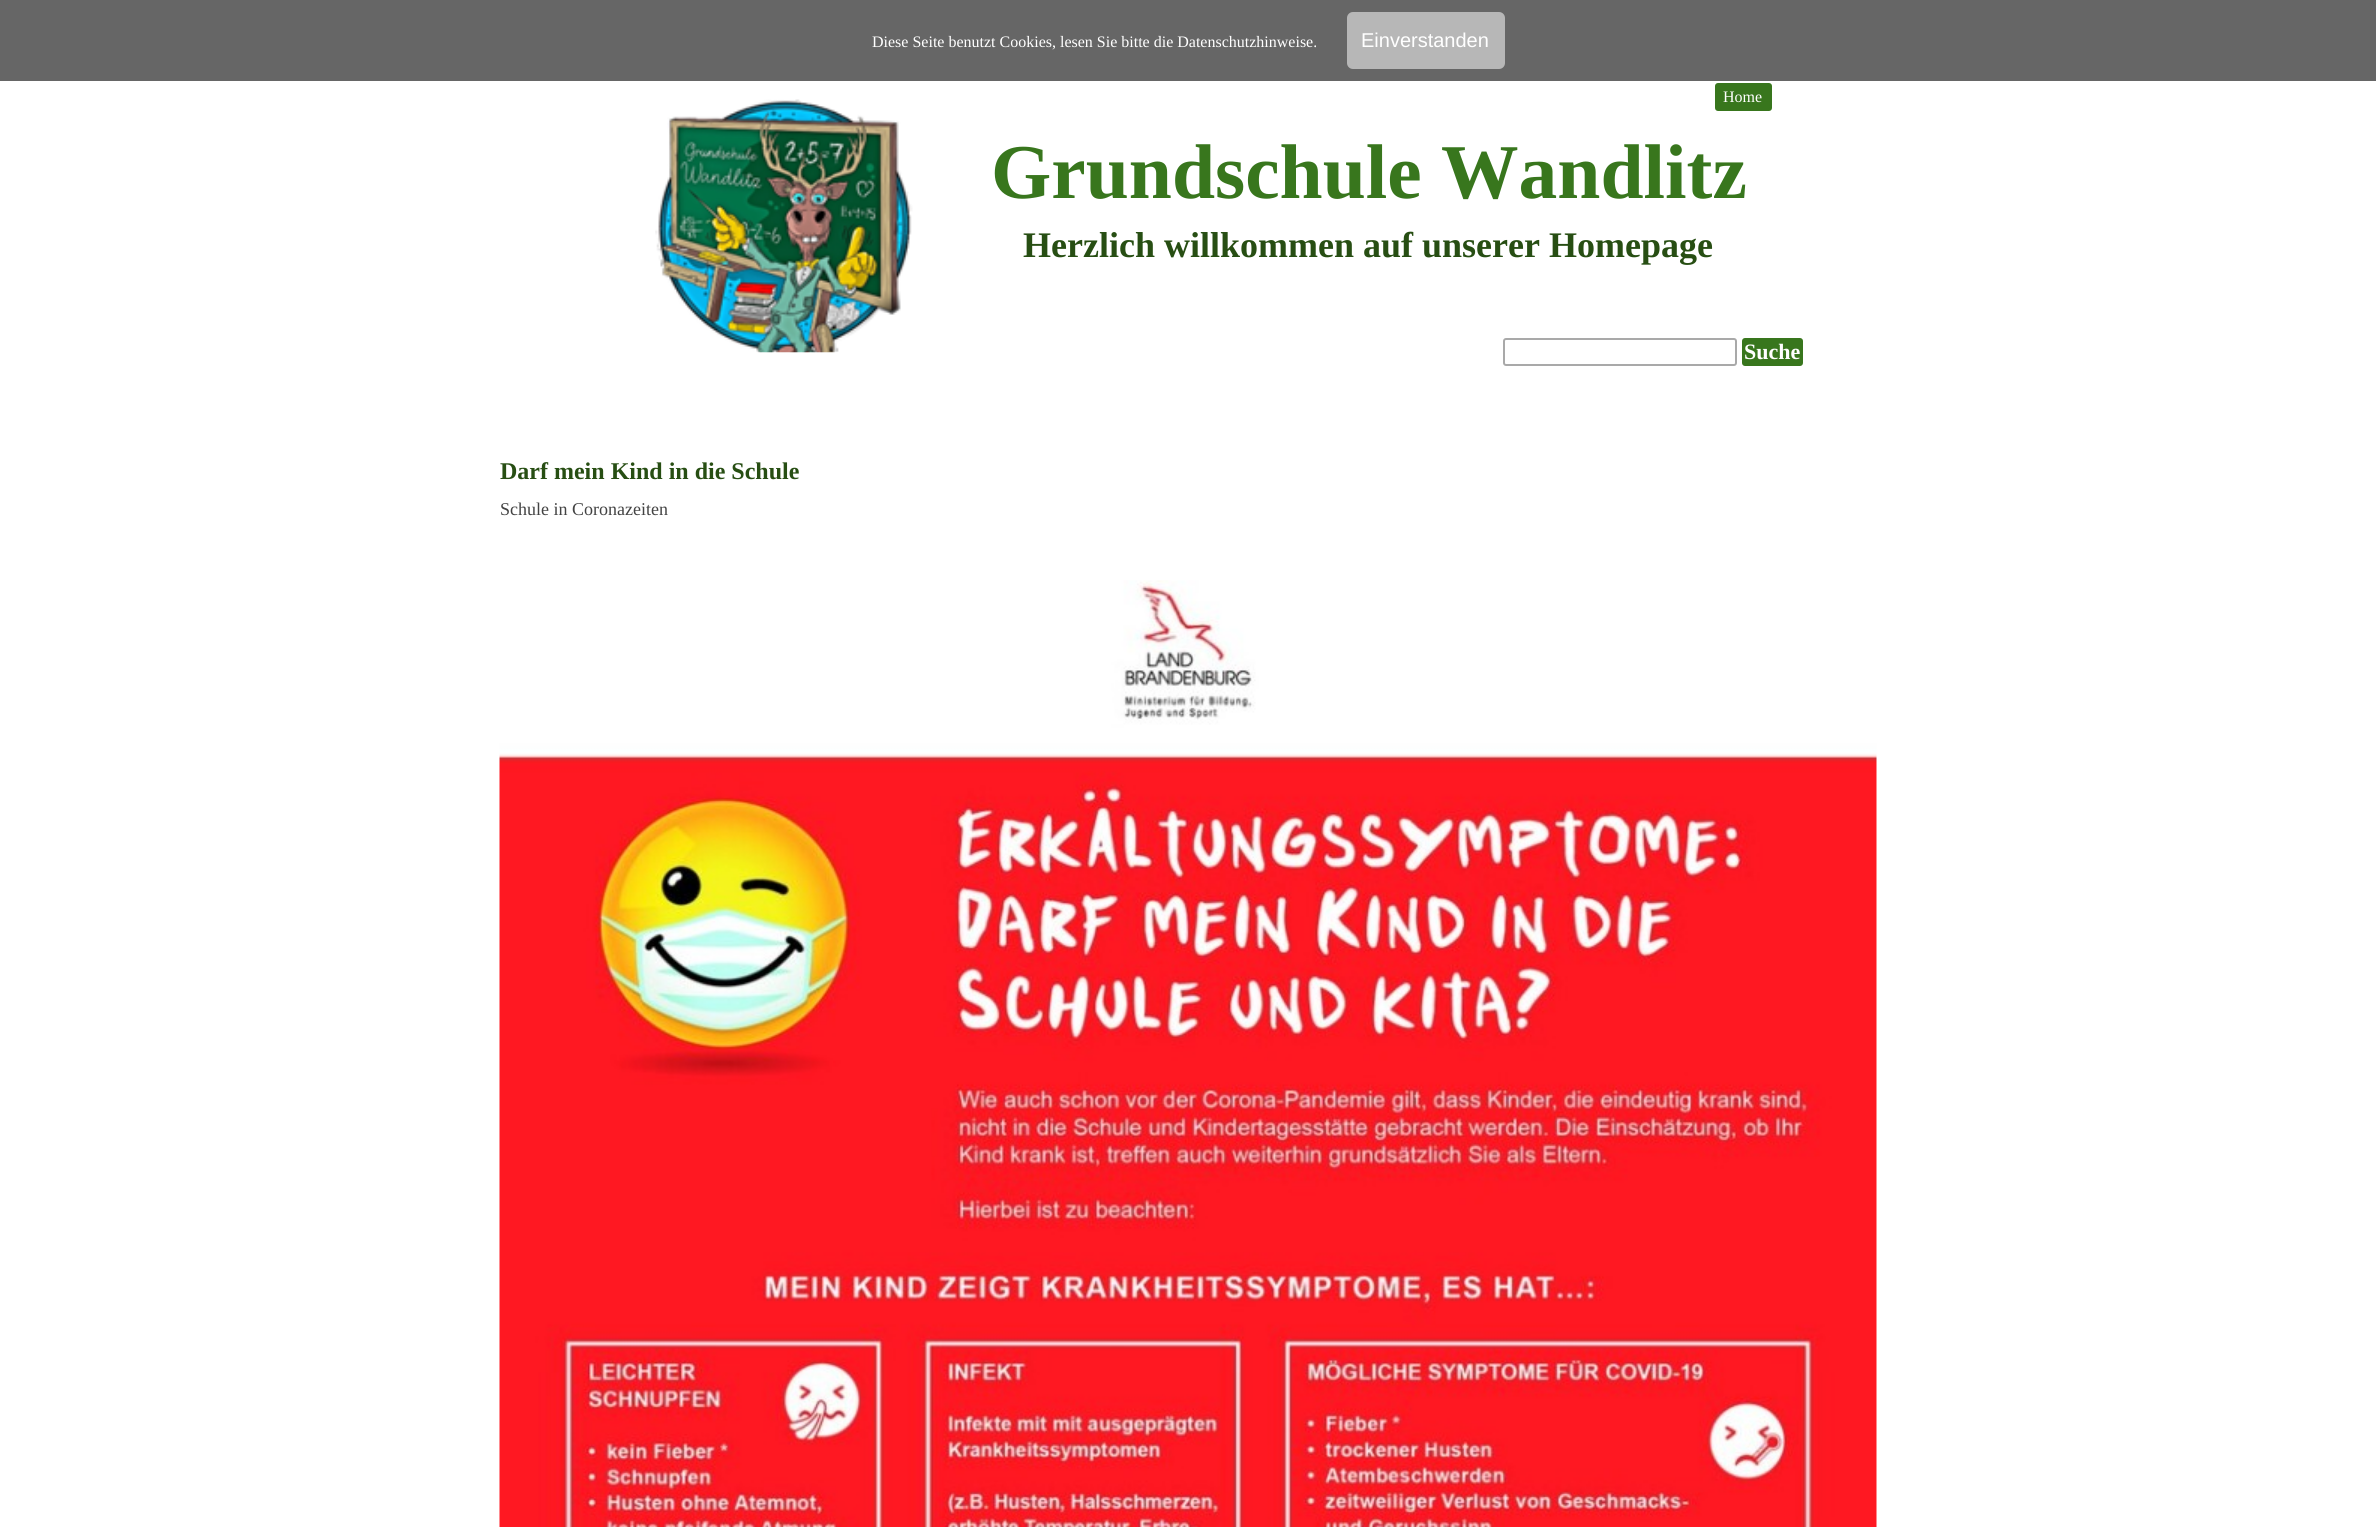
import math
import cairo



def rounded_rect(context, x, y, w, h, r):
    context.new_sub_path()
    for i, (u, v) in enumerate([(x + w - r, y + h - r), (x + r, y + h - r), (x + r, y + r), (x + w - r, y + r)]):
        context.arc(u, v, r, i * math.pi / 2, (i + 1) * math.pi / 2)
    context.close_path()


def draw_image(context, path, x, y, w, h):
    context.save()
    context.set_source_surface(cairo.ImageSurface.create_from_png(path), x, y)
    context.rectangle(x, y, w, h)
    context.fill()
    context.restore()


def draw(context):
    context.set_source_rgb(1, 1, 1)
    context.paint()
    context.set_source_rgb(102 / 255, 102 / 255, 102 / 255)
    context.rectangle(0, 0, 2376, 81)
    context.fill()
    context.set_source_rgb(183 / 255, 183 / 255, 183 / 255)
    rounded_rect(context, 1347, 12, 158, 57, 6)
    context.fill()
    context.set_source_rgb(56 / 255, 118 / 255, 29 / 255)
    rounded_rect(context, 1715, 83, 57, 28, 3)
    context.fill()
    draw_image(context, "images/1.png", 655, 99, 258, 254)
    rounded_rect(context, 1504, 339, 232, 26, 2)
    context.set_source_rgb(169 / 255, 169 / 255, 169 / 255)
    context.stroke()
    context.set_source_rgb(56 / 255, 118 / 255, 29 / 255)
    rounded_rect(context, 1742, 338, 61, 28, 3)
    context.fill()
    draw_image(context, "images/2.png", 499, 580, 1378, 947)
    context.select_font_face("Liberation Serif")
    context.set_font_size(16)
    context.set_source_rgb(1, 1, 1)
    context.move_to(872, 47)
    context.show_text("Diese Seite benutzt Cookies, lesen Sie bitte die Datenschutzhinweise.")
    context.select_font_face("Liberation Sans")
    context.set_font_size(20)
    context.move_to(1361, 47)
    context.show_text("Einverstanden")
    context.select_font_face("Liberation Serif")
    context.set_font_size(16)
    context.move_to(1723, 102)
    context.show_text("Home")
    context.select_font_face("Liberation Serif", cairo.FontSlant.NORMAL, cairo.FontWeight.BOLD)
    context.set_font_size(77.5)
    context.set_source_rgb(56 / 255, 118 / 255, 29 / 255)
    context.move_to(991, 198)
    context.show_text("Grundschule Wandlitz")
    context.set_font_size(36)
    context.set_source_rgb(39 / 255, 78 / 255, 19 / 255)
    context.move_to(1023, 257)
    context.show_text("Herzlich willkommen auf unserer Homepage")
    context.set_font_size(22)
    context.set_source_rgb(1, 1, 1)
    context.move_to(1744, 359)
    context.show_text("Suche")
    context.set_font_size(24)
    context.set_source_rgb(39 / 255, 78 / 255, 19 / 255)
    context.move_to(500, 479)
    context.show_text("Darf mein Kind in die Schule")
    context.select_font_face("Liberation Serif")
    context.set_font_size(18)
    context.set_source_rgb(67 / 255, 67 / 255, 67 / 255)
    context.move_to(500, 515)
    context.show_text("Schule in Coronazeiten")


surface = cairo.ImageSurface(cairo.Format.RGB24, 2376, 1527)
context = cairo.Context(surface)
options = cairo.FontOptions()
options.set_hint_metrics(cairo.HintMetrics.OFF)
options.set_hint_style(cairo.HintStyle.NONE)
context.set_font_options(options)
context.set_miter_limit(4)
draw(context)
surface.write_to_png("out.png")
